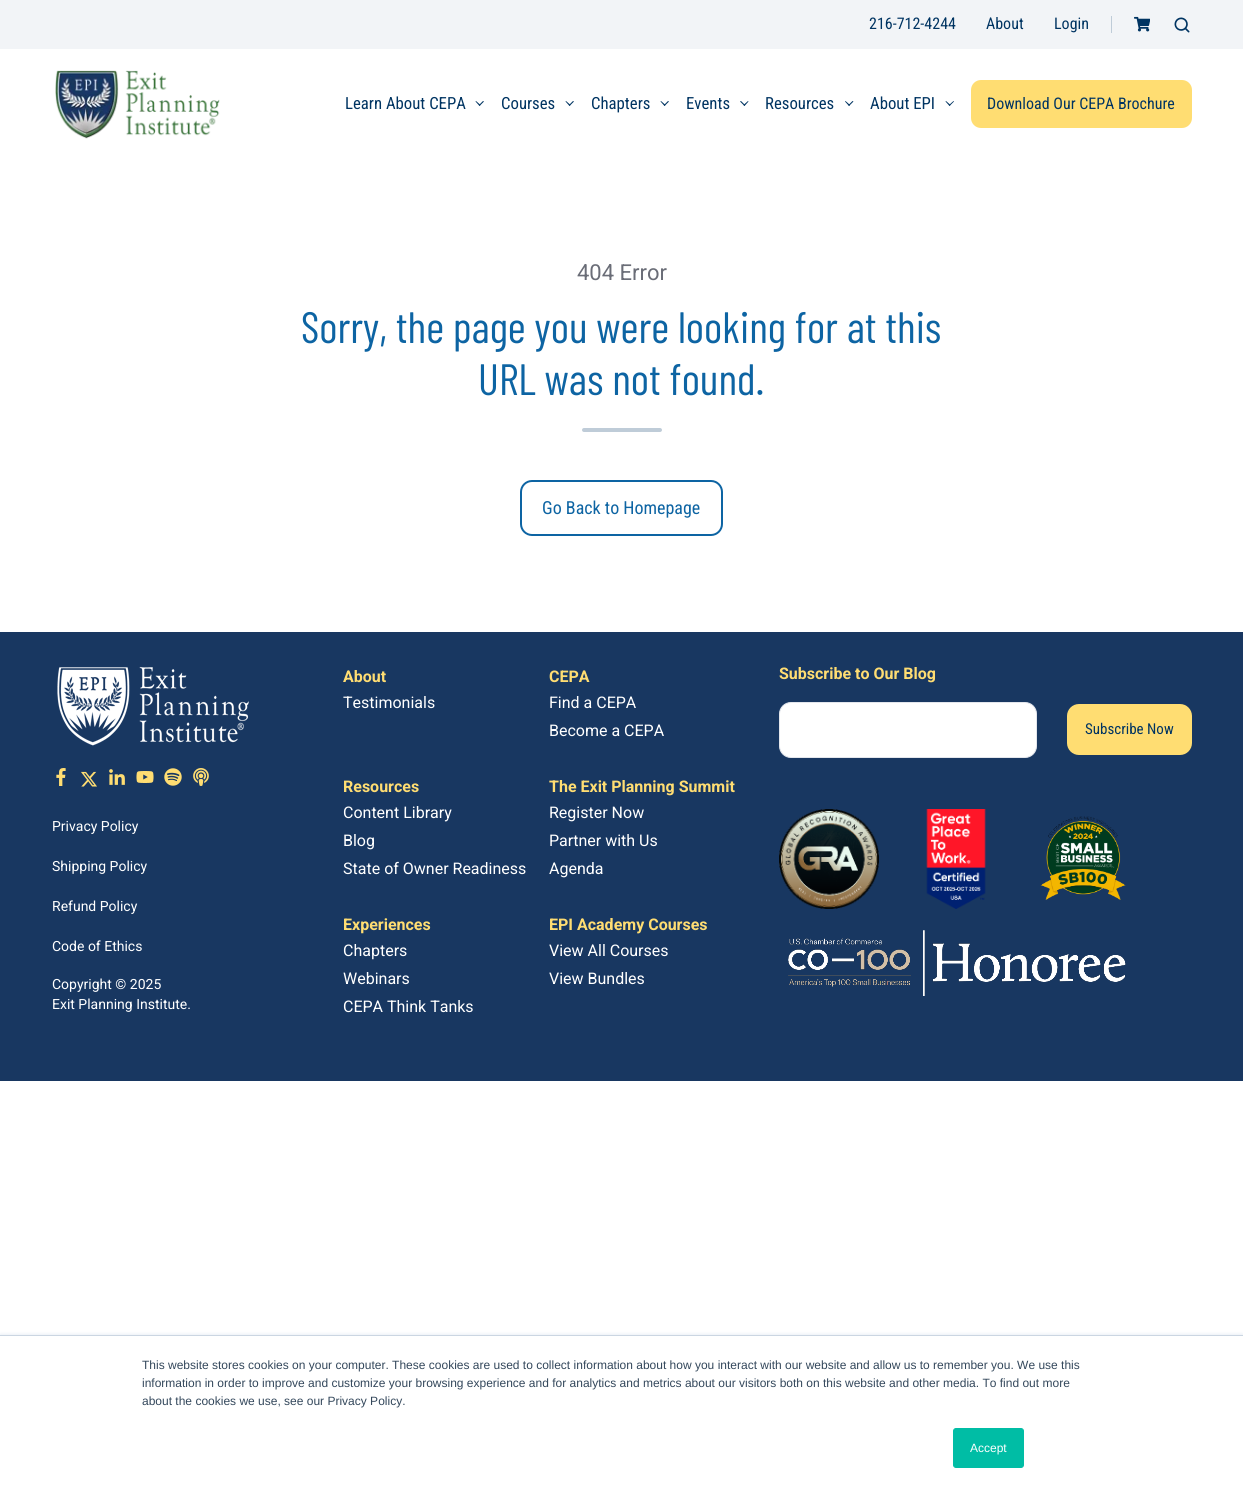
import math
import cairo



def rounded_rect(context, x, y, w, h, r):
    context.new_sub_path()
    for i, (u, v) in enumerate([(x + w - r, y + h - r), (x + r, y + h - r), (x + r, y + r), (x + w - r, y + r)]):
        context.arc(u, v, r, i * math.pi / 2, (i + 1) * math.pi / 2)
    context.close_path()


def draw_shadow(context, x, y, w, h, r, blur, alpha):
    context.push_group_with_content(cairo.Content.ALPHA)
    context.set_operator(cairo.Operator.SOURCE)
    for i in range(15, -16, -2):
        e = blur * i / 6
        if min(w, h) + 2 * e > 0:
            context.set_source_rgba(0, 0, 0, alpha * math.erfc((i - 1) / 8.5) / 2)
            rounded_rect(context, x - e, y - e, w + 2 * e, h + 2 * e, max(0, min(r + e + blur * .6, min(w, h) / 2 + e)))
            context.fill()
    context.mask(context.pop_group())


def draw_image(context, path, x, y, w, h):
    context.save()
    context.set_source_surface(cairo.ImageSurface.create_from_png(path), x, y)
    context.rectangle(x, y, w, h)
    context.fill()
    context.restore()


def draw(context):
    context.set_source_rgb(1, 1, 1)
    context.paint()
    context.set_source_rgb(242 / 255, 244 / 255, 247 / 255)
    context.rectangle(0, 0, 1243, 49)
    context.fill()
    context.set_source_rgb(191 / 255, 204 / 255, 216 / 255)
    context.rectangle(1111, 16, 1, 17)
    context.fill()
    draw_image(context, "images/1.png", 1134, 16, 16, 16)
    draw_image(context, "images/2.png", 1174, 17, 16, 16)
    draw_image(context, "images/3.png", 55, 70, 165, 69)
    context.set_source_rgb(0, 52 / 255, 98 / 255)
    context.new_path()
    context.move_to(479, 105)
    context.line_to(483, 101)
    context.line_to(484, 101.5)
    context.line_to(479.5, 106)
    context.close_path()
    context.fill()
    context.new_path()
    context.move_to(475.5, 101.5)
    context.line_to(476, 101)
    context.line_to(480.5, 105)
    context.line_to(479.5, 106)
    context.close_path()
    context.fill()
    context.new_path()
    context.move_to(569, 105)
    context.line_to(573, 101)
    context.line_to(574, 101.5)
    context.line_to(569.5, 106)
    context.close_path()
    context.fill()
    context.new_path()
    context.move_to(565.5, 101.5)
    context.line_to(566, 101)
    context.line_to(570.5, 105)
    context.line_to(569.5, 106)
    context.close_path()
    context.fill()
    context.new_path()
    context.move_to(664, 105)
    context.line_to(668, 101)
    context.line_to(669, 101.5)
    context.line_to(664.5, 106)
    context.close_path()
    context.fill()
    context.new_path()
    context.move_to(660.5, 101.5)
    context.line_to(661, 101)
    context.line_to(665.5, 105)
    context.line_to(664.5, 106)
    context.close_path()
    context.fill()
    context.new_path()
    context.move_to(743.5, 105)
    context.line_to(748, 101)
    context.line_to(748.5, 101.5)
    context.line_to(744.5, 106)
    context.close_path()
    context.fill()
    context.new_path()
    context.move_to(740, 101.5)
    context.line_to(741, 101)
    context.line_to(745, 105)
    context.line_to(744.5, 106)
    context.close_path()
    context.fill()
    context.new_path()
    context.move_to(848.5, 105)
    context.line_to(852.5, 101)
    context.line_to(853.5, 101.5)
    context.line_to(849, 106)
    context.close_path()
    context.fill()
    context.new_path()
    context.move_to(845, 101.5)
    context.line_to(845.5, 101)
    context.line_to(850, 105)
    context.line_to(849, 106)
    context.close_path()
    context.fill()
    context.new_path()
    context.move_to(949, 105)
    context.line_to(953.5, 101)
    context.line_to(954, 101.5)
    context.line_to(949.5, 106)
    context.close_path()
    context.fill()
    context.new_path()
    context.move_to(945.5, 101.5)
    context.line_to(946, 101)
    context.line_to(950.5, 105)
    context.line_to(949.5, 106)
    context.close_path()
    context.fill()
    context.set_source_rgb(1, 221 / 255, 114 / 255)
    rounded_rect(context, 971, 80, 221, 48, 10)
    context.fill()
    context.set_source_rgb(191 / 255, 204 / 255, 216 / 255)
    rounded_rect(context, 582, 428, 80, 4, 2)
    context.fill()
    rounded_rect(context, 521, 481, 201, 54, 11)
    context.set_source_rgb(13 / 255, 100 / 255, 163 / 255)
    context.stroke()
    context.set_source_rgb(24 / 255, 55 / 255, 97 / 255)
    context.rectangle(0, 632, 1243, 449)
    context.fill()
    draw_image(context, "images/4.png", 57, 666, 192, 80)
    draw_image(context, "images/5.png", 56, 768, 10, 18)
    draw_image(context, "images/6.png", 81, 771, 16, 16)
    draw_image(context, "images/7.png", 109, 769, 16, 16)
    draw_image(context, "images/8.png", 136, 771, 18, 12)
    draw_image(context, "images/9.png", 164, 768, 18, 18)
    draw_image(context, "images/10.png", 193, 768, 16, 18)
    context.set_source_rgb(1, 1, 1)
    rounded_rect(context, 779.5, 702.5, 257, 55, 11.5)
    context.fill_preserve()
    context.set_source_rgb(227 / 255, 230 / 255, 236 / 255)
    context.set_line_width(1)
    context.stroke()
    context.set_source_rgb(1, 221 / 255, 114 / 255)
    rounded_rect(context, 1067, 704, 125, 51, 12)
    context.fill()
    draw_image(context, "images/11.png", 779, 809, 100, 100)
    draw_image(context, "images/12.png", 926, 809, 60, 100)
    draw_image(context, "images/13.png", 1040, 816, 86, 84)
    draw_image(context, "images/14.png", 788, 930, 338, 66)
    context.save()
    context.rectangle(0, 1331, 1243, 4)
    context.clip()
    context.set_source_rgb(234 / 255, 240 / 255, 246 / 255)
    draw_shadow(context, 0, 1334, 1243, 159, 0, 1.5, 1)
    context.restore()
    context.set_source_rgb(203 / 255, 214 / 255, 226 / 255)
    context.rectangle(0, 1335, 1243, 1)
    context.fill()
    context.set_source_rgb(0, 189 / 255, 165 / 255)
    rounded_rect(context, 953.5, 1428.5, 70, 39, 2.5)
    context.fill_preserve()
    context.stroke()
    context.select_font_face("Roboto Condensed")
    context.set_font_size(16)
    context.set_source_rgb(0, 52 / 255, 98 / 255)
    context.move_to(869, 29)
    context.show_text("216-712-4244")
    context.move_to(986, 29)
    context.show_text("About")
    context.move_to(1054, 29)
    context.show_text("Login")
    context.set_font_size(16.75)
    context.move_to(345, 109)
    context.show_text("Learn About CEPA")
    context.move_to(501, 109)
    context.show_text("Courses")
    context.move_to(591, 109)
    context.show_text("Chapters")
    context.move_to(686, 109)
    context.show_text("Events")
    context.move_to(765, 109)
    context.show_text("Resources")
    context.move_to(870, 109)
    context.show_text("About EPI")
    context.set_font_size(16)
    context.move_to(987, 109)
    context.show_text("Download Our CEPA Brochure")
    context.select_font_face("Roboto")
    context.set_font_size(22)
    context.set_source_rgb(106 / 255, 109 / 255, 119 / 255)
    context.move_to(577, 280)
    context.show_text("404 Error")
    context.select_font_face("Barlow Condensed")
    context.set_font_size(43.9)
    context.set_source_rgb(13 / 255, 100 / 255, 163 / 255)
    context.move_to(301, 343)
    context.show_text("Sorry, the page you were looking for at this")
    context.move_to(478, 395)
    context.show_text("URL was not found.")
    context.select_font_face("Roboto Condensed")
    context.set_font_size(18)
    context.move_to(542, 514)
    context.show_text("Go Back to Homepage")
    context.select_font_face("Roboto")
    context.set_font_size(14)
    context.set_source_rgb(1, 1, 1)
    context.move_to(52, 831)
    context.show_text("Privacy Policy")
    context.move_to(52, 871)
    context.show_text("Shipping Policy")
    context.move_to(52, 911)
    context.show_text("Refund Policy")
    context.move_to(52, 951)
    context.show_text("Code of Ethics")
    context.move_to(52, 989)
    context.show_text("Copyright © 2025")
    context.move_to(52, 1009)
    context.show_text("Exit Planning Institute.")
    context.select_font_face("Roboto", cairo.FontSlant.NORMAL, cairo.FontWeight.BOLD)
    context.set_font_size(16)
    context.set_source_rgb(1, 221 / 255, 114 / 255)
    context.move_to(343, 682)
    context.show_text("About")
    context.select_font_face("Roboto")
    context.set_source_rgb(1, 1, 1)
    context.move_to(343, 708)
    context.show_text("Testimonials")
    context.select_font_face("Roboto", cairo.FontSlant.NORMAL, cairo.FontWeight.BOLD)
    context.set_source_rgb(1, 221 / 255, 114 / 255)
    context.move_to(549, 682)
    context.show_text("CEPA")
    context.select_font_face("Roboto")
    context.set_source_rgb(1, 1, 1)
    context.move_to(549, 708)
    context.show_text("Find a CEPA")
    context.move_to(549, 736)
    context.show_text("Become a CEPA")
    context.select_font_face("Roboto", cairo.FontSlant.NORMAL, cairo.FontWeight.BOLD)
    context.set_source_rgb(1, 221 / 255, 114 / 255)
    context.move_to(343, 792)
    context.show_text("Resources")
    context.select_font_face("Roboto")
    context.set_source_rgb(1, 1, 1)
    context.move_to(343, 818)
    context.show_text("Content Library")
    context.move_to(343, 846)
    context.show_text("Blog")
    context.move_to(343, 874)
    context.show_text("State of Owner Readiness")
    context.select_font_face("Roboto", cairo.FontSlant.NORMAL, cairo.FontWeight.BOLD)
    context.set_source_rgb(1, 221 / 255, 114 / 255)
    context.move_to(549, 792)
    context.show_text("The Exit Planning Summit")
    context.select_font_face("Roboto")
    context.set_source_rgb(1, 1, 1)
    context.move_to(549, 818)
    context.show_text("Register Now")
    context.move_to(549, 846)
    context.show_text("Partner with Us")
    context.move_to(549, 874)
    context.show_text("Agenda")
    context.select_font_face("Roboto", cairo.FontSlant.NORMAL, cairo.FontWeight.BOLD)
    context.set_source_rgb(1, 221 / 255, 114 / 255)
    context.move_to(343, 930)
    context.show_text("Experiences")
    context.select_font_face("Roboto")
    context.set_source_rgb(1, 1, 1)
    context.move_to(343, 956)
    context.show_text("Chapters")
    context.move_to(343, 984)
    context.show_text("Webinars")
    context.move_to(343, 1012)
    context.show_text("CEPA Think Tanks")
    context.select_font_face("Roboto", cairo.FontSlant.NORMAL, cairo.FontWeight.BOLD)
    context.set_source_rgb(1, 221 / 255, 114 / 255)
    context.move_to(549, 930)
    context.show_text("EPI Academy Courses")
    context.select_font_face("Roboto")
    context.set_source_rgb(1, 1, 1)
    context.move_to(549, 956)
    context.show_text("View All Courses")
    context.move_to(549, 984)
    context.show_text("View Bundles")
    context.select_font_face("Roboto", cairo.FontSlant.NORMAL, cairo.FontWeight.BOLD)
    context.set_source_rgb(1, 221 / 255, 114 / 255)
    context.move_to(779, 679)
    context.show_text("Subscribe to Our Blog")
    context.select_font_face("Roboto Condensed")
    context.set_font_size(15)
    context.set_source_rgb(0, 52 / 255, 98 / 255)
    context.move_to(1085, 734)
    context.show_text("Subscribe Now")
    context.select_font_face("Liberation Sans")
    context.set_font_size(12)
    context.set_source_rgb(51 / 255, 71 / 255, 91 / 255)
    context.move_to(142, 1369)
    context.show_text("This website stores cookies on your computer. These cookies are used to collect information about how you interact with our website and allow us to remember you. We use this")
    context.move_to(142, 1387)
    context.show_text("information in order to improve and customize your browsing experience and for analytics and metrics about our visitors both on this website and other media. To find out more")
    context.move_to(142, 1405)
    context.show_text("about the cookies we use, see our Privacy Policy.")
    context.set_source_rgb(1, 1, 1)
    context.move_to(970, 1452)
    context.show_text("Accept")


surface = cairo.ImageSurface(cairo.Format.RGB24, 1243, 1494)
context = cairo.Context(surface)
options = cairo.FontOptions()
options.set_hint_metrics(cairo.HintMetrics.OFF)
options.set_hint_style(cairo.HintStyle.NONE)
context.set_font_options(options)
context.set_miter_limit(4)
draw(context)
surface.write_to_png("out.png")
